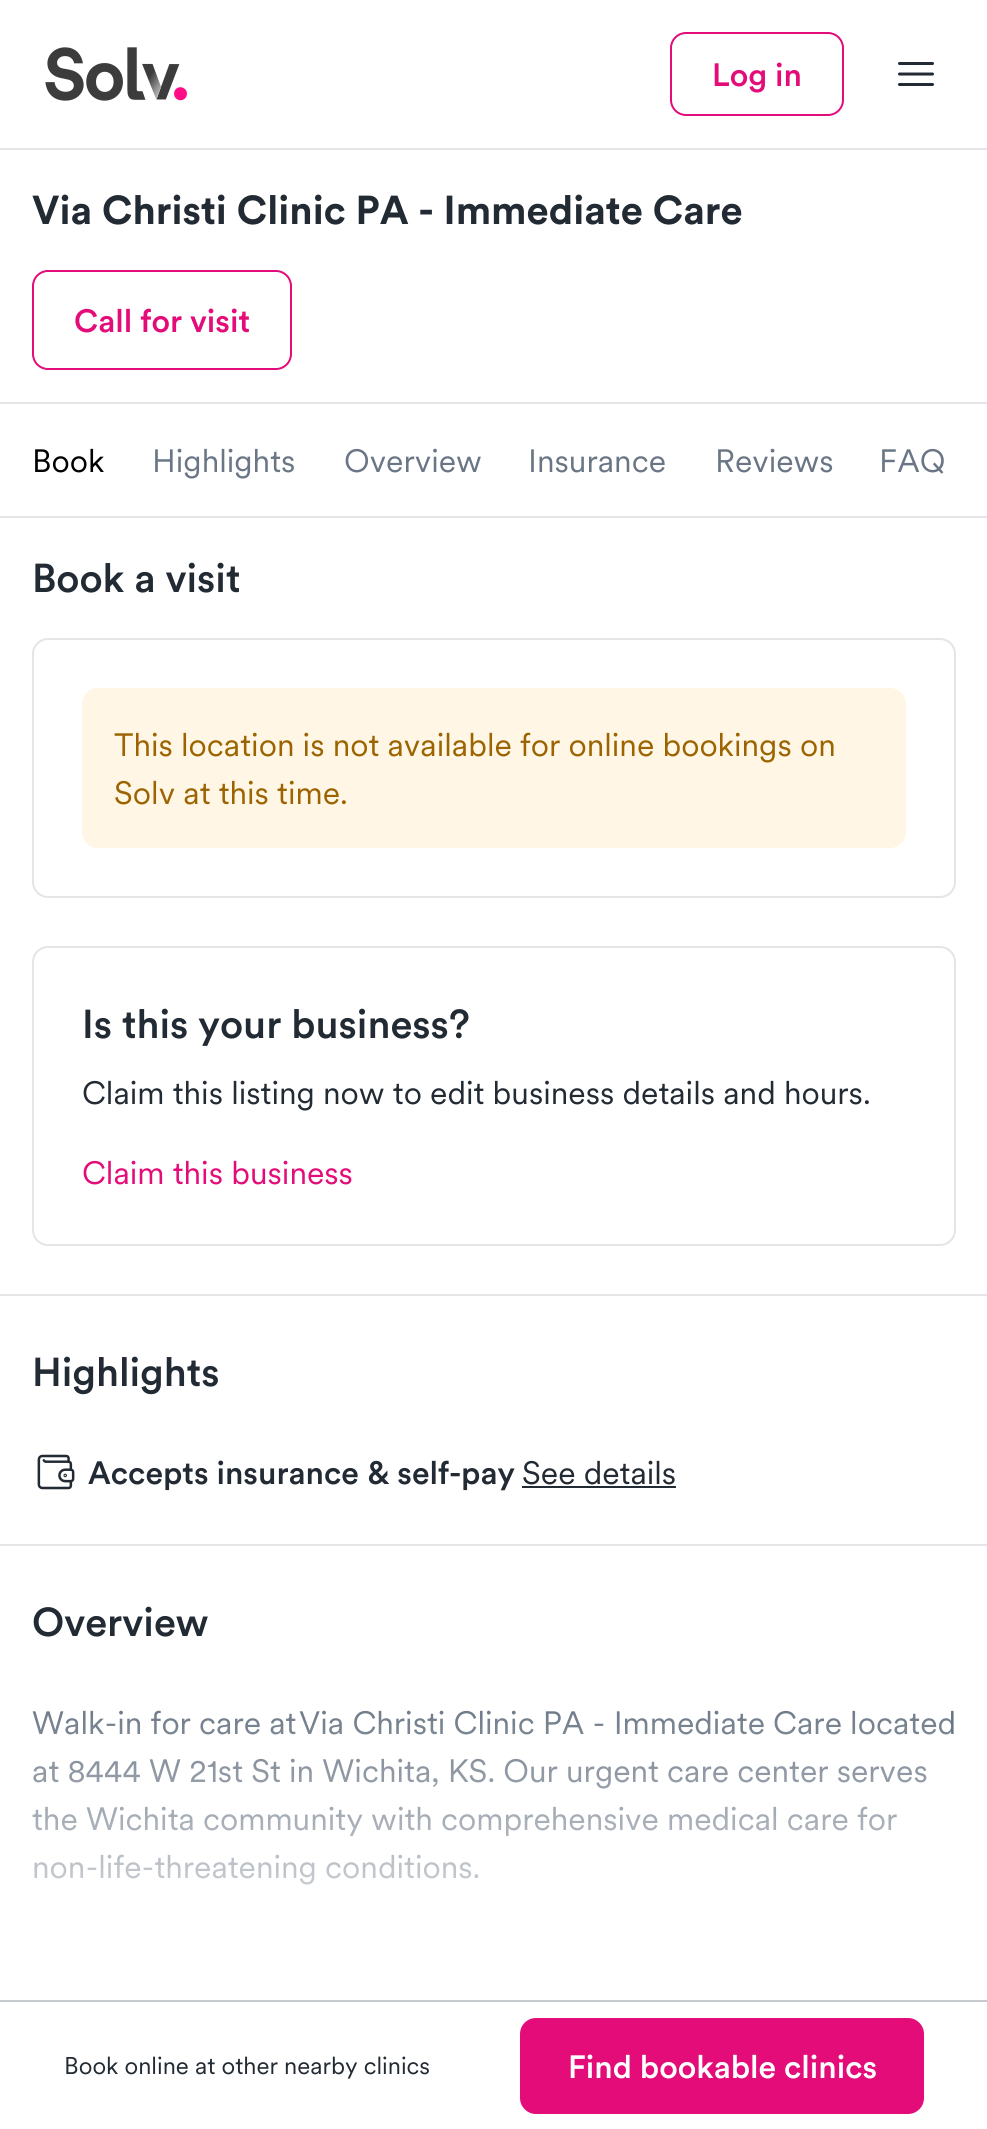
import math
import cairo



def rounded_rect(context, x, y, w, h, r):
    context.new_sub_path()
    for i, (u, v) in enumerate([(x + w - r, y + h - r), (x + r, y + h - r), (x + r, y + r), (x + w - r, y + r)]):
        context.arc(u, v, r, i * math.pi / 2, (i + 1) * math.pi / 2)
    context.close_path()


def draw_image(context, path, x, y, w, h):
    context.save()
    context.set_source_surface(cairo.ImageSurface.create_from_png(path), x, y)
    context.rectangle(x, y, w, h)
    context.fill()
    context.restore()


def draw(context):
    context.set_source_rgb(1, 1, 1)
    context.paint()
    context.set_source_rgb(227 / 255, 229 / 255, 230 / 255)
    context.rectangle(0, 148, 987, 2)
    context.fill()
    draw_image(context, "images/1.png", 45, 47, 142, 54)
    rounded_rect(context, 671, 33, 172, 82, 15)
    context.set_source_rgb(227 / 255, 12 / 255, 121 / 255)
    context.stroke()
    context.new_path()
    context.move_to(899.5, 63.5)
    context.line_to(932.5, 63.5)
    context.move_to(899.5, 74)
    context.line_to(932.5, 74)
    context.move_to(899.5, 84.5)
    context.line_to(932.5, 84.5)
    context.set_source_rgb(34 / 255, 42 / 255, 51 / 255)
    context.set_line_width(3)
    context.set_line_cap(cairo.LineCap.ROUND)
    context.set_line_join(cairo.LineJoin.ROUND)
    context.stroke()
    rounded_rect(context, 33, 271, 258, 98, 15)
    context.set_source_rgb(227 / 255, 12 / 255, 121 / 255)
    context.set_line_width(2)
    context.set_line_cap(cairo.LineCap.BUTT)
    context.set_line_join(cairo.LineJoin.MITER)
    context.stroke()
    context.set_source_rgb(227 / 255, 229 / 255, 230 / 255)
    context.rectangle(0, 402, 987, 2)
    context.fill()
    context.rectangle(0, 516, 987, 2)
    context.fill()
    rounded_rect(context, 33, 639, 922, 258, 15)
    context.stroke()
    context.set_source_rgb(1, 246 / 255, 229 / 255)
    rounded_rect(context, 82, 688, 824, 160, 16)
    context.fill()
    rounded_rect(context, 33, 947, 922, 298, 15)
    context.set_source_rgb(227 / 255, 229 / 255, 230 / 255)
    context.stroke()
    context.rectangle(0, 1294, 987, 2)
    context.fill()
    draw_image(context, "images/2.png", 37, 1454, 38, 36)
    context.set_source_rgb(34 / 255, 42 / 255, 51 / 255)
    context.rectangle(522, 1486, 154, 2)
    context.fill()
    context.set_source_rgb(227 / 255, 229 / 255, 230 / 255)
    context.rectangle(0, 1544, 987, 2)
    context.fill()
    context.set_source_rgb(198 / 255, 202 / 255, 207 / 255)
    context.rectangle(0, 2000, 987, 2)
    context.fill()
    context.set_source_rgb(227 / 255, 12 / 255, 121 / 255)
    rounded_rect(context, 520, 2018, 404, 96, 16)
    context.fill()
    context.select_font_face("Circular Medium")
    context.set_font_size(32)
    context.move_to(712, 86)
    context.show_text("Log in")
    context.select_font_face("Circular", cairo.FontSlant.NORMAL, cairo.FontWeight.BOLD)
    context.set_font_size(40)
    context.set_source_rgb(34 / 255, 42 / 255, 51 / 255)
    context.move_to(32, 224)
    context.show_text("Via Christi Clinic PA - Immediate Care")
    context.select_font_face("Circular Medium")
    context.set_font_size(32)
    context.set_source_rgb(227 / 255, 12 / 255, 121 / 255)
    context.move_to(74, 332)
    context.show_text("Call for visit")
    context.select_font_face("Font")
    context.set_source_rgb(0, 0, 0)
    context.move_to(32, 472)
    context.show_text("Book")
    context.set_source_rgb(106 / 255, 118 / 255, 133 / 255)
    context.move_to(152, 472)
    context.show_text("Highlights")
    context.move_to(344, 472)
    context.show_text("Overview")
    context.move_to(528, 472)
    context.show_text("Insurance")
    context.move_to(715, 472)
    context.show_text("Reviews")
    context.move_to(879, 472)
    context.show_text("FAQ")
    context.select_font_face("Circular Medium")
    context.set_font_size(40)
    context.set_source_rgb(34 / 255, 42 / 255, 51 / 255)
    context.move_to(32, 592)
    context.show_text("Book a visit")
    context.select_font_face("Font")
    context.set_font_size(32)
    context.set_source_rgb(156 / 255, 100 / 255, 0)
    context.move_to(114, 756)
    context.show_text("This location is not available for online bookings on")
    context.move_to(114, 804)
    context.show_text("Solv at this time.")
    context.select_font_face("Circular Medium")
    context.set_font_size(40)
    context.set_source_rgb(34 / 255, 42 / 255, 51 / 255)
    context.move_to(82, 1038)
    context.show_text("Is this your business?")
    context.select_font_face("Font")
    context.set_font_size(32)
    context.move_to(82, 1104)
    context.show_text("Claim this listing now to edit business details and hours.")
    context.set_source_rgb(227 / 255, 12 / 255, 121 / 255)
    context.move_to(82, 1184)
    context.show_text("Claim this business")
    context.select_font_face("Circular Medium")
    context.set_font_size(40)
    context.set_source_rgb(34 / 255, 42 / 255, 51 / 255)
    context.move_to(32, 1386)
    context.show_text("Highlights")
    context.set_font_size(32)
    context.move_to(88, 1484)
    context.show_text("Accepts insurance & self-pay")
    context.select_font_face("Font")
    context.move_to(522, 1484)
    context.show_text("See details")
    context.select_font_face("Circular Medium")
    context.set_font_size(40)
    context.move_to(32, 1636)
    context.show_text("Overview")
    context.select_font_face("Font")
    context.set_font_size(32)
    context.set_source_rgb(106 / 255, 118 / 255, 133 / 255)
    context.move_to(32, 1734)
    context.show_text("Walk-in for care at")
    context.move_to(299, 1734)
    context.show_text("Via Christi Clinic PA - Immediate Care located")
    context.move_to(32, 1782)
    context.show_text("at 8444 W 21st St in Wichita, KS. Our urgent care center serves")
    context.move_to(32, 1830)
    context.show_text("the Wichita")
    context.move_to(203, 1830)
    context.show_text("community with comprehensive medical care for")
    context.move_to(32, 1878)
    context.show_text("non-life-threatening conditions.")
    gradient = cairo.LinearGradient(494, 1998, 494, 1698)
    gradient.add_color_stop_rgba(0, 1, 1, 1, 1)
    gradient.add_color_stop_rgba(1, 1, 1, 1, 0)
    context.set_source(gradient)
    context.rectangle(32, 1711, 919, 174)
    context.fill()
    context.set_font_size(24)
    context.set_source_rgb(34 / 255, 42 / 255, 51 / 255)
    context.move_to(64, 2074)
    context.show_text("Book online at other nearby clinics")
    context.select_font_face("Circular Medium")
    context.set_font_size(32)
    context.set_source_rgb(1, 1, 1)
    context.move_to(568, 2078)
    context.show_text("Find bookable clinics")


surface = cairo.ImageSurface(cairo.Format.RGB24, 987, 2129)
context = cairo.Context(surface)
options = cairo.FontOptions()
options.set_hint_metrics(cairo.HintMetrics.OFF)
options.set_hint_style(cairo.HintStyle.NONE)
context.set_font_options(options)
context.set_miter_limit(4)
draw(context)
surface.write_to_png("out.png")
